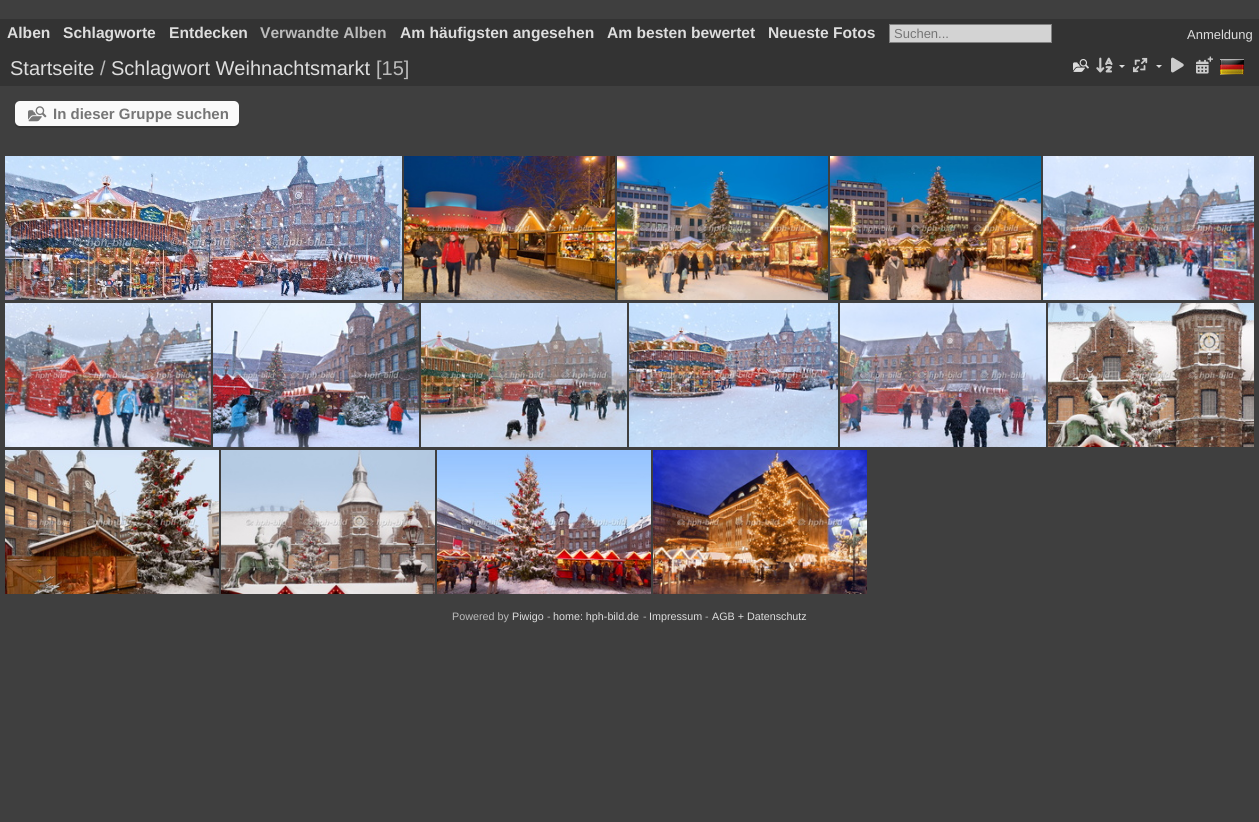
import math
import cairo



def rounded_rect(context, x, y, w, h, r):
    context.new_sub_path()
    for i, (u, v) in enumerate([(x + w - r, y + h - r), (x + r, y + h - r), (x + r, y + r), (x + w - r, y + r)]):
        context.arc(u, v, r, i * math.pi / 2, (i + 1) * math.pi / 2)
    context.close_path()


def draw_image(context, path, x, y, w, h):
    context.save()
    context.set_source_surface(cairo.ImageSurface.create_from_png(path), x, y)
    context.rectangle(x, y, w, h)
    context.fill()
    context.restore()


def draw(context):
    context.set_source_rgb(63 / 255, 63 / 255, 63 / 255)
    context.paint()
    context.set_source_rgb(51 / 255, 51 / 255, 51 / 255)
    context.rectangle(0, 19, 1259, 67)
    context.fill()
    context.set_source_rgb(211 / 255, 211 / 255, 211 / 255)
    context.rectangle(889.5, 24.5, 162, 18)
    context.fill_preserve()
    context.set_source_rgb(128 / 255, 128 / 255, 128 / 255)
    context.set_line_width(1)
    context.stroke()
    draw_image(context, "images/1.png", 1096, 57, 17, 16)
    context.set_source_rgb(221 / 255, 221 / 255, 221 / 255)
    context.new_path()
    context.move_to(1119, 65)
    context.line_to(1125, 65)
    context.line_to(1122, 68)
    context.close_path()
    context.move_to(1156, 65)
    context.line_to(1162, 65)
    context.line_to(1159, 68)
    context.close_path()
    context.fill()
    draw_image(context, "images/2.png", 1196, 56, 17, 18)
    draw_image(context, "images/3.png", 1073, 59, 16, 13)
    draw_image(context, "images/4.png", 1133, 57, 15, 16)
    draw_image(context, "images/5.png", 1171, 57, 13, 16)
    draw_image(context, "images/6.png", 1220, 59, 24, 16)
    context.set_source_rgb(54 / 255, 54 / 255, 54 / 255)
    context.new_path()
    context.move_to(15, 121)
    context.line_to(15, 123)
    context.curve_to(15, 126, 17, 128, 20, 128)
    context.line_to(234, 128)
    context.curve_to(237, 128, 239, 126, 239, 123)
    context.line_to(239, 121)
    context.curve_to(239, 124, 237, 126, 234, 126)
    context.line_to(20, 126)
    context.curve_to(17, 126, 15, 124, 15, 121)
    context.close_path()
    context.fill()
    context.set_source_rgb(250 / 255, 250 / 255, 250 / 255)
    rounded_rect(context, 15, 101, 224, 25, 5)
    context.fill()
    draw_image(context, "images/7.png", 28, 106, 19, 16)
    draw_image(context, "images/8.png", 5, 156, 397, 144)
    draw_image(context, "images/9.png", 404, 156, 211, 144)
    draw_image(context, "images/10.png", 617, 156, 211, 144)
    draw_image(context, "images/11.png", 830, 156, 211, 144)
    draw_image(context, "images/12.png", 1043, 156, 211, 144)
    draw_image(context, "images/13.png", 5, 303, 206, 144)
    draw_image(context, "images/14.png", 213, 303, 206, 144)
    draw_image(context, "images/15.png", 421, 303, 206, 144)
    draw_image(context, "images/16.png", 629, 303, 209, 144)
    draw_image(context, "images/17.png", 840, 303, 206, 144)
    draw_image(context, "images/18.png", 1048, 303, 206, 144)
    draw_image(context, "images/19.png", 5, 450, 214, 144)
    draw_image(context, "images/20.png", 221, 450, 214, 144)
    draw_image(context, "images/21.png", 437, 450, 214, 144)
    draw_image(context, "images/22.png", 653, 450, 214, 144)
    context.select_font_face("Liberation Sans", cairo.FontSlant.NORMAL, cairo.FontWeight.BOLD)
    context.set_font_size(15.6)
    context.set_source_rgb(221 / 255, 221 / 255, 221 / 255)
    context.move_to(7, 38)
    context.show_text("Alben")
    context.move_to(63, 38)
    context.show_text("Schlagworte")
    context.move_to(169, 38)
    context.show_text("Entdecken")
    context.set_source_rgb(187 / 255, 187 / 255, 187 / 255)
    context.move_to(260, 38)
    context.show_text("Verwandte Alben")
    context.set_source_rgb(221 / 255, 221 / 255, 221 / 255)
    context.move_to(400, 38)
    context.show_text("Am häufigsten angesehen")
    context.move_to(607, 38)
    context.show_text("Am besten bewertet")
    context.move_to(768, 38)
    context.show_text("Neueste Fotos")
    context.select_font_face("Liberation Sans")
    context.set_font_size(13)
    context.set_source_rgb(117 / 255, 117 / 255, 117 / 255)
    context.move_to(894, 38)
    context.show_text("Suchen...")
    context.set_source_rgb(221 / 255, 221 / 255, 221 / 255)
    context.move_to(1187, 39)
    context.show_text("Anmeldung")
    context.set_font_size(20)
    context.move_to(10, 75)
    context.show_text("Startseite")
    context.set_source_rgb(187 / 255, 187 / 255, 187 / 255)
    context.move_to(100, 75)
    context.show_text("/")
    context.set_source_rgb(221 / 255, 221 / 255, 221 / 255)
    context.move_to(111, 75)
    context.show_text("Schlagwort Weihnachtsmarkt")
    context.set_source_rgb(187 / 255, 187 / 255, 187 / 255)
    context.move_to(376, 75)
    context.show_text("[15]")
    context.select_font_face("Liberation Sans", cairo.FontSlant.NORMAL, cairo.FontWeight.BOLD)
    context.set_font_size(15)
    context.set_source_rgb(117 / 255, 117 / 255, 117 / 255)
    context.move_to(53, 119)
    context.show_text("In dieser Gruppe suchen")
    context.select_font_face("Liberation Sans")
    context.set_font_size(10.75)
    context.set_source_rgb(187 / 255, 187 / 255, 187 / 255)
    context.move_to(452, 620)
    context.show_text("Powered by")
    context.set_source_rgb(221 / 255, 221 / 255, 221 / 255)
    context.move_to(512, 620)
    context.show_text("Piwigo")
    context.set_source_rgb(187 / 255, 187 / 255, 187 / 255)
    context.move_to(547, 620)
    context.show_text("-")
    context.set_source_rgb(221 / 255, 221 / 255, 221 / 255)
    context.move_to(553, 620)
    context.show_text("home: hph-bild.de")
    context.set_source_rgb(187 / 255, 187 / 255, 187 / 255)
    context.move_to(643, 620)
    context.show_text("-")
    context.set_source_rgb(221 / 255, 221 / 255, 221 / 255)
    context.move_to(649, 620)
    context.show_text("Impressum")
    context.set_source_rgb(187 / 255, 187 / 255, 187 / 255)
    context.move_to(705, 620)
    context.show_text("-")
    context.set_source_rgb(221 / 255, 221 / 255, 221 / 255)
    context.move_to(712, 620)
    context.show_text("AGB + Datenschutz")


surface = cairo.ImageSurface(cairo.Format.RGB24, 1259, 822)
context = cairo.Context(surface)
options = cairo.FontOptions()
options.set_hint_metrics(cairo.HintMetrics.OFF)
options.set_hint_style(cairo.HintStyle.NONE)
context.set_font_options(options)
context.set_miter_limit(4)
draw(context)
surface.write_to_png("out.png")
